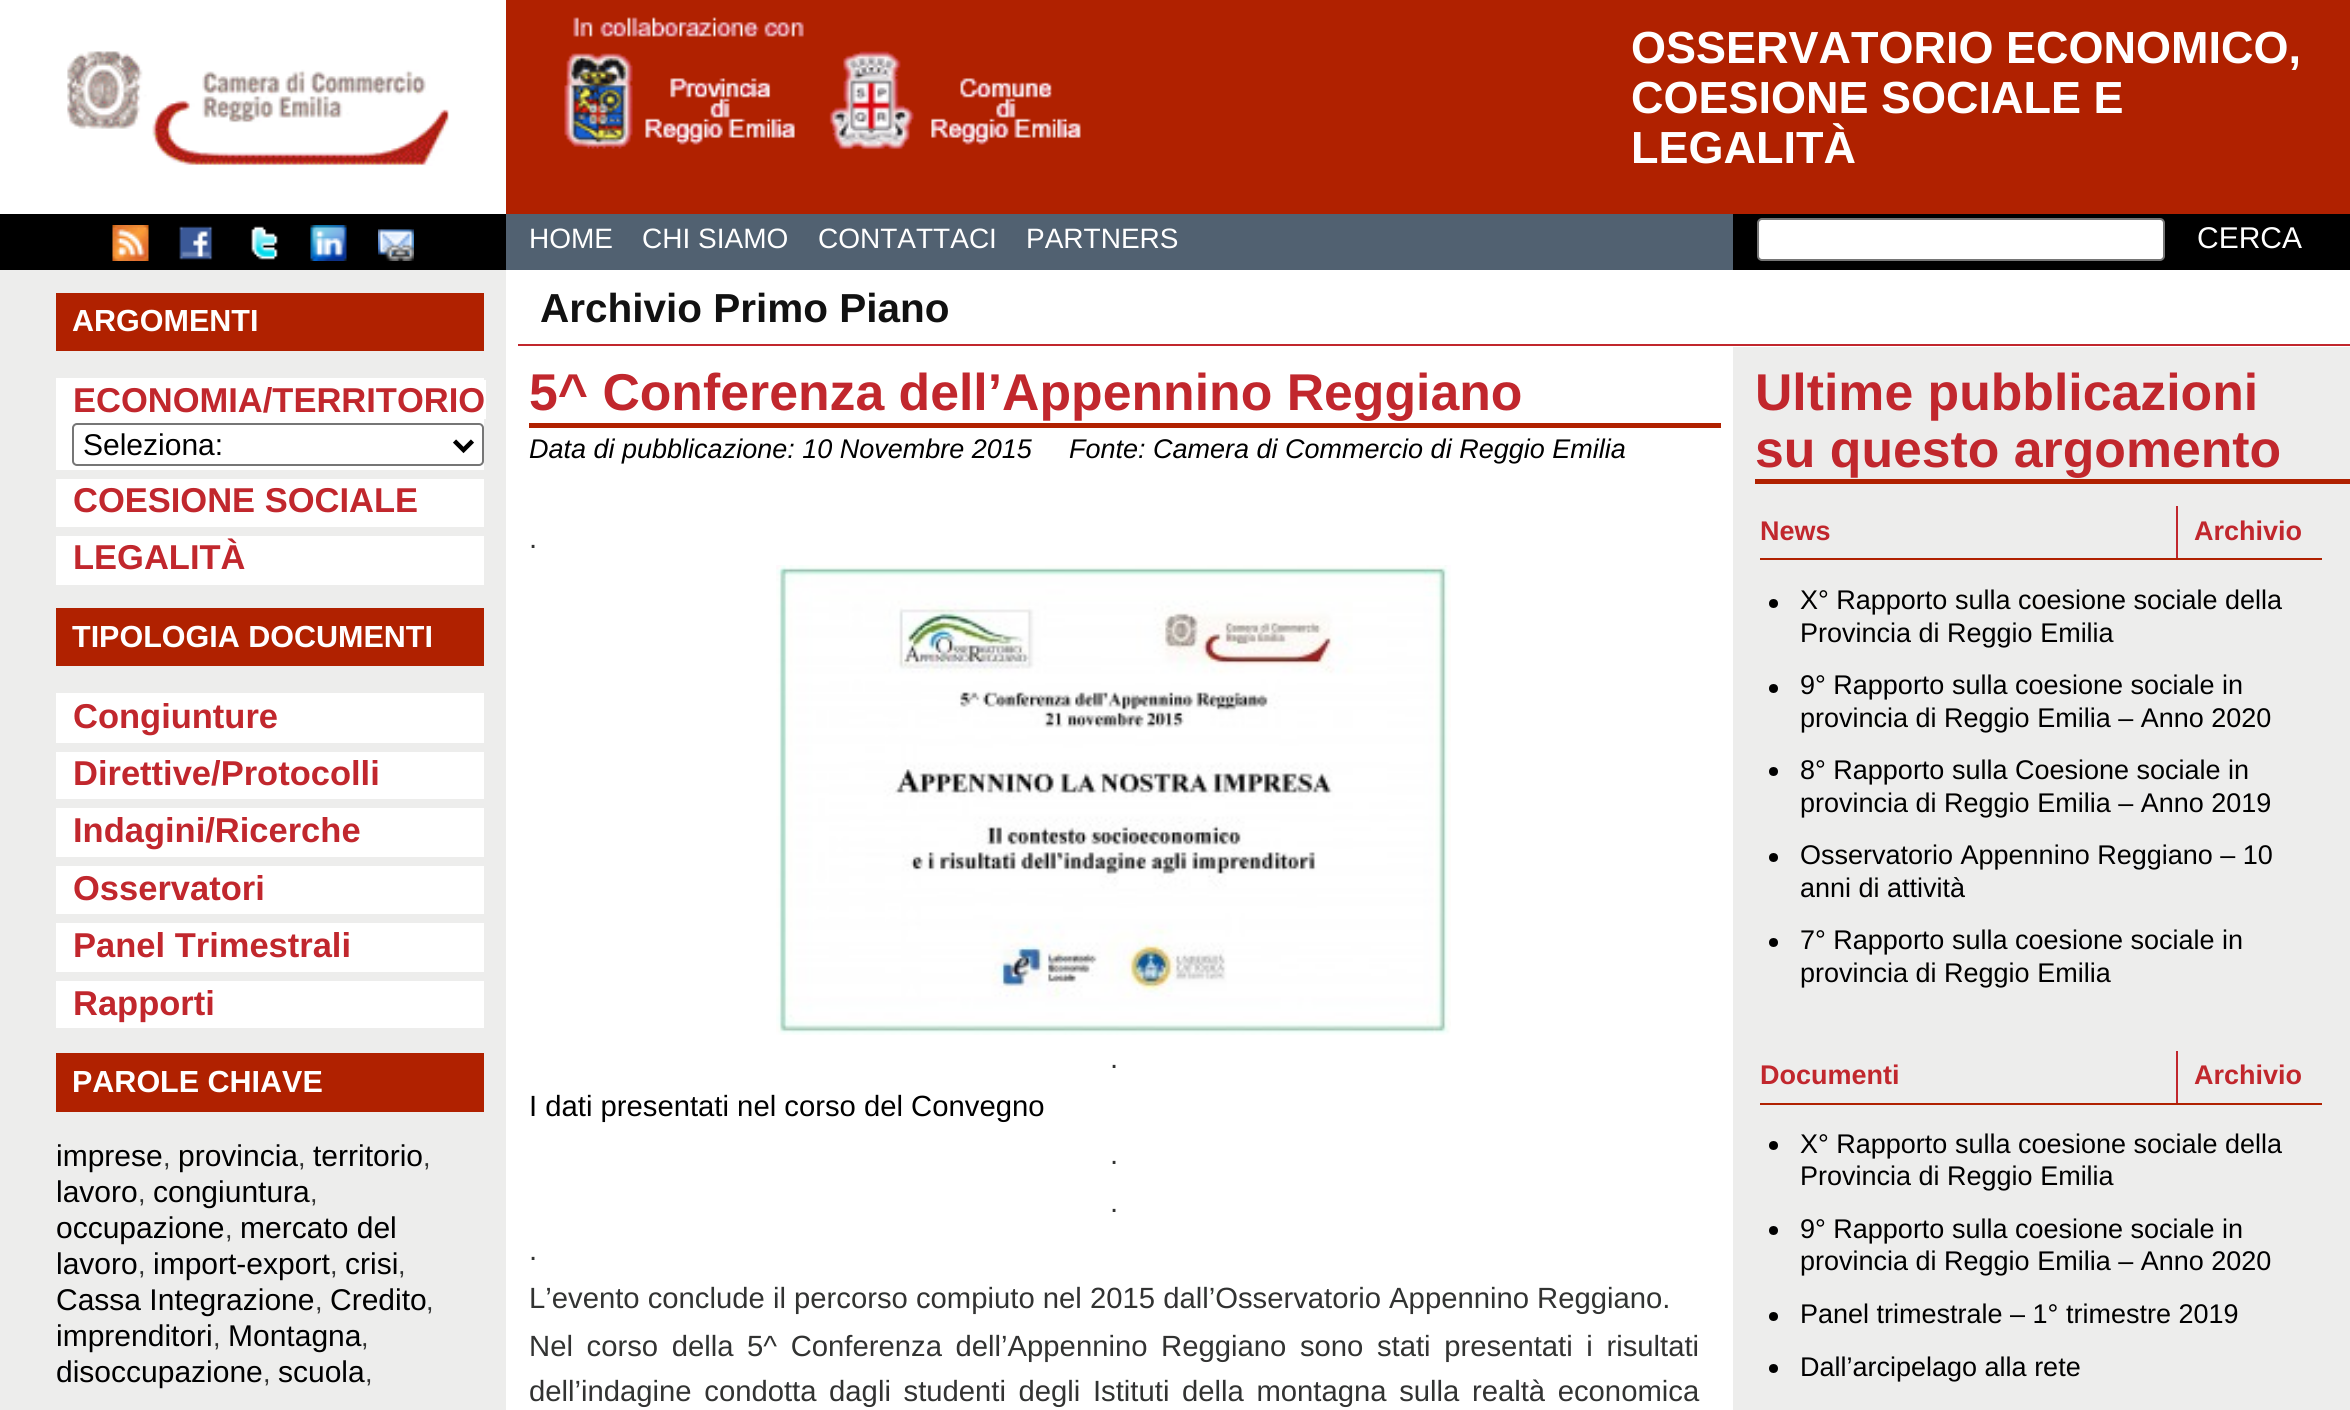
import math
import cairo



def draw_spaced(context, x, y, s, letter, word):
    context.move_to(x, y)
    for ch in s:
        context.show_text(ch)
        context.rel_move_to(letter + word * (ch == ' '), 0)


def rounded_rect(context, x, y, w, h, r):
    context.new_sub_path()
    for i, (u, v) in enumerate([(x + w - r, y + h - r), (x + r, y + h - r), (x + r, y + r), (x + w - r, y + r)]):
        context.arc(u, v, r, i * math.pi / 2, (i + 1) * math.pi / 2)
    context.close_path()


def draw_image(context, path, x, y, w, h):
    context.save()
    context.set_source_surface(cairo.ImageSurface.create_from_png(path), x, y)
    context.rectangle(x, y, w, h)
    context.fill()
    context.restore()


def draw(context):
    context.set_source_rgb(237 / 255, 237 / 255, 236 / 255)
    context.paint()
    context.set_source_rgb(176 / 255, 33 / 255, 0)
    context.rectangle(506, 0, 1844, 214)
    context.fill()
    context.set_source_rgb(1, 1, 1)
    context.rectangle(0, 0, 506, 214)
    context.fill()
    draw_image(context, "images/1.png", 67, 51, 382, 115)
    draw_image(context, "images/2.png", 564, 17, 240, 132)
    draw_image(context, "images/3.png", 829, 51, 252, 99)
    context.set_source_rgb(0, 0, 0)
    context.rectangle(0, 214, 2350, 56)
    context.fill()
    draw_image(context, "images/4.png", 112, 225, 37, 36)
    draw_image(context, "images/5.png", 179, 226, 34, 34)
    draw_image(context, "images/6.png", 251, 226, 27, 34)
    draw_image(context, "images/7.png", 310, 225, 37, 36)
    draw_image(context, "images/8.png", 378, 229, 36, 32)
    context.set_source_rgb(81 / 255, 97 / 255, 113 / 255)
    context.rectangle(506, 214, 1227, 56)
    context.fill()
    context.set_source_rgb(1, 1, 1)
    rounded_rect(context, 1758, 219, 406, 41, 4)
    context.fill_preserve()
    context.set_source_rgb(118 / 255, 118 / 255, 118 / 255)
    context.stroke()
    context.set_source_rgb(176 / 255, 33 / 255, 0)
    context.rectangle(56, 293, 428, 58)
    context.fill()
    context.set_source_rgb(1, 1, 1)
    context.rectangle(56, 378, 428, 92)
    context.fill()
    context.rectangle(484, 380, 2, 39)
    context.fill()
    rounded_rect(context, 73, 424, 410, 41, 4)
    context.set_source_rgb(118 / 255, 118 / 255, 118 / 255)
    context.stroke()
    context.new_path()
    context.move_to(454.5, 441)
    context.line_to(463.5, 450)
    context.line_to(472.5, 441)
    context.set_source_rgb(0, 0, 0)
    context.set_line_width(4.5)
    context.stroke()
    context.set_source_rgb(1, 1, 1)
    context.rectangle(56, 479, 428, 48)
    context.fill()
    context.rectangle(56, 536, 428, 49)
    context.fill()
    context.set_source_rgb(176 / 255, 33 / 255, 0)
    context.rectangle(56, 608, 428, 58)
    context.fill()
    context.set_source_rgb(1, 1, 1)
    context.rectangle(56, 693, 428, 50)
    context.fill()
    context.rectangle(56, 752, 428, 47)
    context.fill()
    context.rectangle(56, 808, 428, 49)
    context.fill()
    context.rectangle(56, 866, 428, 48)
    context.fill()
    context.rectangle(56, 923, 428, 49)
    context.fill()
    context.rectangle(56, 981, 428, 47)
    context.fill()
    context.set_source_rgb(176 / 255, 33 / 255, 0)
    context.rectangle(56, 1053, 428, 59)
    context.fill()
    context.set_source_rgb(1, 1, 1)
    context.rectangle(506, 270, 1227, 1140)
    context.fill()
    context.set_source_rgb(193 / 255, 39 / 255, 45 / 255)
    context.rectangle(518, 344, 1215, 2)
    context.fill()
    context.set_source_rgb(176 / 255, 33 / 255, 0)
    context.rectangle(529, 423, 1192, 5)
    context.fill()
    draw_image(context, "images/9.png", 776, 565, 675, 470)
    context.set_source_rgb(1, 1, 1)
    context.rectangle(1733, 270, 617, 77)
    context.fill()
    context.set_source_rgb(193 / 255, 39 / 255, 45 / 255)
    context.rectangle(1733, 344, 617, 2)
    context.fill()
    context.set_source_rgb(176 / 255, 33 / 255, 0)
    context.rectangle(1755, 479, 595, 5)
    context.fill()
    context.rectangle(1760, 558, 562, 2)
    context.fill()
    context.set_source_rgb(193 / 255, 39 / 255, 45 / 255)
    context.rectangle(2176, 506, 2, 52)
    context.fill()
    context.set_source_rgb(0, 0, 0)
    context.arc(1773.5, 603.5, 4.5, 0, 2 * math.pi)
    context.fill()
    context.arc(1773.5, 688.5, 4.5, 0, 2 * math.pi)
    context.fill()
    context.arc(1773.5, 771.5, 4.5, 0, 2 * math.pi)
    context.fill()
    context.arc(1773.5, 857.5, 4.5, 0, 2 * math.pi)
    context.fill()
    context.arc(1773.5, 942.5, 4.5, 0, 2 * math.pi)
    context.fill()
    context.set_source_rgb(176 / 255, 33 / 255, 0)
    context.rectangle(1760, 1103, 562, 2)
    context.fill()
    context.set_source_rgb(193 / 255, 39 / 255, 45 / 255)
    context.rectangle(2176, 1051, 2, 52)
    context.fill()
    context.set_source_rgb(0, 0, 0)
    context.arc(1773.5, 1145.5, 4.5, 0, 2 * math.pi)
    context.fill()
    context.arc(1773.5, 1230.5, 4.5, 0, 2 * math.pi)
    context.fill()
    context.arc(1773.5, 1316.5, 4.5, 0, 2 * math.pi)
    context.fill()
    context.arc(1773.5, 1368.5, 4.5, 0, 2 * math.pi)
    context.fill()
    context.select_font_face("Liberation Sans", cairo.FontSlant.NORMAL, cairo.FontWeight.BOLD)
    context.set_font_size(45)
    context.set_source_rgb(1, 1, 1)
    context.move_to(1631, 63)
    context.show_text("OSSERVATORIO ECONOMICO,")
    context.move_to(1631, 113)
    context.show_text("COESIONE SOCIALE E")
    context.move_to(1631, 163)
    context.show_text("LEGALITÀ")
    context.select_font_face("Liberation Sans")
    context.set_font_size(28)
    context.move_to(529, 248)
    context.show_text("HOME")
    context.move_to(642, 248)
    context.show_text("CHI SIAMO")
    context.move_to(818, 248)
    context.show_text("CONTATTACI")
    context.move_to(1026, 248)
    context.show_text("PARTNERS")
    context.set_font_size(30)
    context.move_to(2197, 248)
    context.show_text("CERCA")
    context.select_font_face("Liberation Sans", cairo.FontSlant.NORMAL, cairo.FontWeight.BOLD)
    context.set_font_size(30.5)
    context.move_to(72, 331)
    context.show_text("ARGOMENTI")
    context.set_font_size(34.5)
    context.set_source_rgb(193 / 255, 39 / 255, 45 / 255)
    context.move_to(73, 412)
    context.show_text("ECONOMIA/TERRITORIO")
    context.select_font_face("Liberation Sans")
    context.set_font_size(30)
    context.set_source_rgb(0, 0, 0)
    context.move_to(83, 455)
    context.show_text("Seleziona:")
    context.select_font_face("Liberation Sans", cairo.FontSlant.NORMAL, cairo.FontWeight.BOLD)
    context.set_font_size(34.5)
    context.set_source_rgb(193 / 255, 39 / 255, 45 / 255)
    context.move_to(73, 512)
    context.show_text("COESIONE SOCIALE")
    context.move_to(73, 569)
    context.show_text("LEGALITÀ")
    context.set_font_size(30.5)
    context.set_source_rgb(1, 1, 1)
    context.move_to(72, 647)
    context.show_text("TIPOLOGIA DOCUMENTI")
    context.set_font_size(34.5)
    context.set_source_rgb(193 / 255, 39 / 255, 45 / 255)
    context.move_to(73, 728)
    context.show_text("Congiunture")
    context.move_to(73, 785)
    context.show_text("Direttive/Protocolli")
    context.move_to(73, 842)
    context.show_text("Indagini/Ricerche")
    context.move_to(73, 900)
    context.show_text("Osservatori")
    context.move_to(73, 957)
    context.show_text("Panel Trimestrali")
    context.move_to(73, 1015)
    context.show_text("Rapporti")
    context.set_font_size(30.5)
    context.set_source_rgb(1, 1, 1)
    context.move_to(72, 1092)
    context.show_text("PAROLE CHIAVE")
    context.select_font_face("Liberation Sans")
    context.set_font_size(30)
    context.set_source_rgb(0, 0, 0)
    context.move_to(56, 1166)
    context.show_text("imprese")
    context.set_font_size(27)
    context.set_source_rgb(50 / 255, 51 / 255, 50 / 255)
    context.move_to(163, 1166)
    context.show_text(",")
    context.set_font_size(30)
    context.set_source_rgb(0, 0, 0)
    context.move_to(178, 1166)
    context.show_text("provincia")
    context.set_font_size(27)
    context.set_source_rgb(50 / 255, 51 / 255, 50 / 255)
    context.move_to(298, 1166)
    context.show_text(",")
    context.set_font_size(30)
    context.set_source_rgb(0, 0, 0)
    context.move_to(313, 1166)
    context.show_text("territorio")
    context.set_font_size(27)
    context.set_source_rgb(50 / 255, 51 / 255, 50 / 255)
    context.move_to(423, 1166)
    context.show_text(",")
    context.set_font_size(30)
    context.set_source_rgb(0, 0, 0)
    context.move_to(56, 1202)
    context.show_text("lavoro")
    context.set_font_size(27)
    context.set_source_rgb(50 / 255, 51 / 255, 50 / 255)
    context.move_to(138, 1202)
    context.show_text(",")
    context.set_font_size(30)
    context.set_source_rgb(0, 0, 0)
    context.move_to(153, 1202)
    context.show_text("congiuntura")
    context.set_font_size(27)
    context.set_source_rgb(50 / 255, 51 / 255, 50 / 255)
    context.move_to(310, 1202)
    context.show_text(",")
    context.set_font_size(30)
    context.set_source_rgb(0, 0, 0)
    context.move_to(56, 1238)
    context.show_text("occupazione")
    context.set_font_size(27)
    context.set_source_rgb(50 / 255, 51 / 255, 50 / 255)
    context.move_to(225, 1238)
    context.show_text(",")
    context.set_font_size(30)
    context.set_source_rgb(0, 0, 0)
    context.move_to(240, 1238)
    context.show_text("mercato del")
    context.move_to(56, 1274)
    context.show_text("lavoro")
    context.set_font_size(27)
    context.set_source_rgb(50 / 255, 51 / 255, 50 / 255)
    context.move_to(138, 1274)
    context.show_text(",")
    context.set_font_size(30)
    context.set_source_rgb(0, 0, 0)
    context.move_to(153, 1274)
    context.show_text("import-export")
    context.set_font_size(27)
    context.set_source_rgb(50 / 255, 51 / 255, 50 / 255)
    context.move_to(330, 1274)
    context.show_text(",")
    context.set_font_size(30)
    context.set_source_rgb(0, 0, 0)
    context.move_to(345, 1274)
    context.show_text("crisi")
    context.set_font_size(27)
    context.set_source_rgb(50 / 255, 51 / 255, 50 / 255)
    context.move_to(398, 1274)
    context.show_text(",")
    context.set_font_size(30)
    context.set_source_rgb(0, 0, 0)
    context.move_to(56, 1310)
    context.show_text("Cassa Integrazione")
    context.set_font_size(27)
    context.set_source_rgb(50 / 255, 51 / 255, 50 / 255)
    context.move_to(315, 1310)
    context.show_text(",")
    context.set_font_size(30)
    context.set_source_rgb(0, 0, 0)
    context.move_to(330, 1310)
    context.show_text("Credito")
    context.set_font_size(27)
    context.set_source_rgb(50 / 255, 51 / 255, 50 / 255)
    context.move_to(426, 1310)
    context.show_text(",")
    context.set_font_size(30)
    context.set_source_rgb(0, 0, 0)
    context.move_to(56, 1346)
    context.show_text("imprenditori")
    context.set_font_size(27)
    context.set_source_rgb(50 / 255, 51 / 255, 50 / 255)
    context.move_to(213, 1346)
    context.show_text(",")
    context.set_font_size(30)
    context.set_source_rgb(0, 0, 0)
    context.move_to(228, 1346)
    context.show_text("Montagna")
    context.set_font_size(27)
    context.set_source_rgb(50 / 255, 51 / 255, 50 / 255)
    context.move_to(361, 1346)
    context.show_text(",")
    context.set_font_size(30)
    context.set_source_rgb(0, 0, 0)
    context.move_to(56, 1382)
    context.show_text("disoccupazione")
    context.set_font_size(27)
    context.set_source_rgb(50 / 255, 51 / 255, 50 / 255)
    context.move_to(263, 1382)
    context.show_text(",")
    context.set_font_size(30)
    context.set_source_rgb(0, 0, 0)
    context.move_to(278, 1382)
    context.show_text("scuola")
    context.set_font_size(27)
    context.set_source_rgb(50 / 255, 51 / 255, 50 / 255)
    context.move_to(365, 1382)
    context.show_text(",")
    context.select_font_face("Liberation Sans", cairo.FontSlant.NORMAL, cairo.FontWeight.BOLD)
    context.set_font_size(40.5)
    context.set_source_rgb(17 / 255, 17 / 255, 17 / 255)
    context.move_to(540, 322)
    context.show_text("Archivio Primo Piano")
    context.set_font_size(51.75)
    context.set_source_rgb(193 / 255, 39 / 255, 45 / 255)
    context.move_to(529, 410)
    context.show_text("5^ Conferenza dell’Appennino Reggiano")
    context.select_font_face("Liberation Sans", cairo.FontSlant.ITALIC)
    context.set_font_size(27)
    context.set_source_rgb(0, 0, 0)
    context.move_to(529, 458)
    context.show_text("Data di pubblicazione: 10 Novembre 2015")
    context.move_to(1069, 458)
    context.show_text("Fonte: Camera di Commercio di Reggio Emilia")
    context.select_font_face("Liberation Sans")
    context.set_font_size(29.25)
    context.set_source_rgb(50 / 255, 51 / 255, 50 / 255)
    context.move_to(529, 548)
    context.show_text(".")
    context.move_to(1110, 1068)
    context.show_text(".")
    context.set_source_rgb(0, 0, 0)
    context.move_to(529, 1116)
    context.show_text("I dati presentati nel corso del Convegno")
    context.set_source_rgb(50 / 255, 51 / 255, 50 / 255)
    context.move_to(1110, 1164)
    context.show_text(".")
    context.move_to(1110, 1212)
    context.show_text(".")
    context.move_to(529, 1260)
    context.show_text(".")
    context.move_to(529, 1308)
    context.show_text("L’evento conclude il percorso compiuto nel 2015 dall’Osservatorio Appennino Reggiano.")
    draw_spaced(context, 529, 1356, "Nel corso della 5^ Conferenza dell’Appennino Reggiano sono stati presentati i risultati", 0, 5.5)
    draw_spaced(context, 529, 1401, "dell’indagine condotta dagli studenti degli Istituti della montagna sulla realtà economica", 0, 4.5)
    context.select_font_face("Liberation Sans", cairo.FontSlant.NORMAL, cairo.FontWeight.BOLD)
    context.set_font_size(51.75)
    context.set_source_rgb(193 / 255, 39 / 255, 45 / 255)
    context.move_to(1755, 410)
    context.show_text("Ultime pubblicazioni")
    context.move_to(1755, 467)
    context.show_text("su questo argomento")
    context.set_font_size(27)
    context.move_to(1760, 540)
    context.show_text("News")
    context.move_to(2194, 540)
    context.show_text("Archivio")
    context.select_font_face("Liberation Sans")
    context.set_source_rgb(0, 0, 0)
    context.move_to(1800, 609)
    context.show_text("X° Rapporto sulla coesione sociale della")
    context.move_to(1800, 642)
    context.show_text("Provincia di Reggio Emilia")
    context.move_to(1800, 694)
    context.show_text("9° Rapporto sulla coesione sociale in")
    context.move_to(1800, 727)
    context.show_text("provincia di Reggio Emilia – Anno 2020")
    context.move_to(1800, 779)
    context.show_text("8° Rapporto sulla Coesione sociale in")
    context.move_to(1800, 812)
    context.show_text("provincia di Reggio Emilia – Anno 2019")
    context.move_to(1800, 864)
    context.show_text("Osservatorio Appennino Reggiano – 10")
    context.move_to(1800, 897)
    context.show_text("anni di attività")
    context.move_to(1800, 949)
    context.show_text("7° Rapporto sulla coesione sociale in")
    context.move_to(1800, 982)
    context.show_text("provincia di Reggio Emilia")
    context.select_font_face("Liberation Sans", cairo.FontSlant.NORMAL, cairo.FontWeight.BOLD)
    context.set_source_rgb(193 / 255, 39 / 255, 45 / 255)
    context.move_to(1760, 1084)
    context.show_text("Documenti")
    context.move_to(2194, 1084)
    context.show_text("Archivio")
    context.select_font_face("Liberation Sans")
    context.set_source_rgb(0, 0, 0)
    context.move_to(1800, 1153)
    context.show_text("X° Rapporto sulla coesione sociale della")
    context.move_to(1800, 1185)
    context.show_text("Provincia di Reggio Emilia")
    context.move_to(1800, 1238)
    context.show_text("9° Rapporto sulla coesione sociale in")
    context.move_to(1800, 1270)
    context.show_text("provincia di Reggio Emilia – Anno 2020")
    context.move_to(1800, 1323)
    context.show_text("Panel trimestrale – 1° trimestre 2019")
    context.move_to(1800, 1376)
    context.show_text("Dall’arcipelago alla rete")


surface = cairo.ImageSurface(cairo.Format.RGB24, 2350, 1410)
context = cairo.Context(surface)
options = cairo.FontOptions()
options.set_hint_metrics(cairo.HintMetrics.OFF)
options.set_hint_style(cairo.HintStyle.NONE)
context.set_font_options(options)
context.set_miter_limit(4)
draw(context)
surface.write_to_png("out.png")
